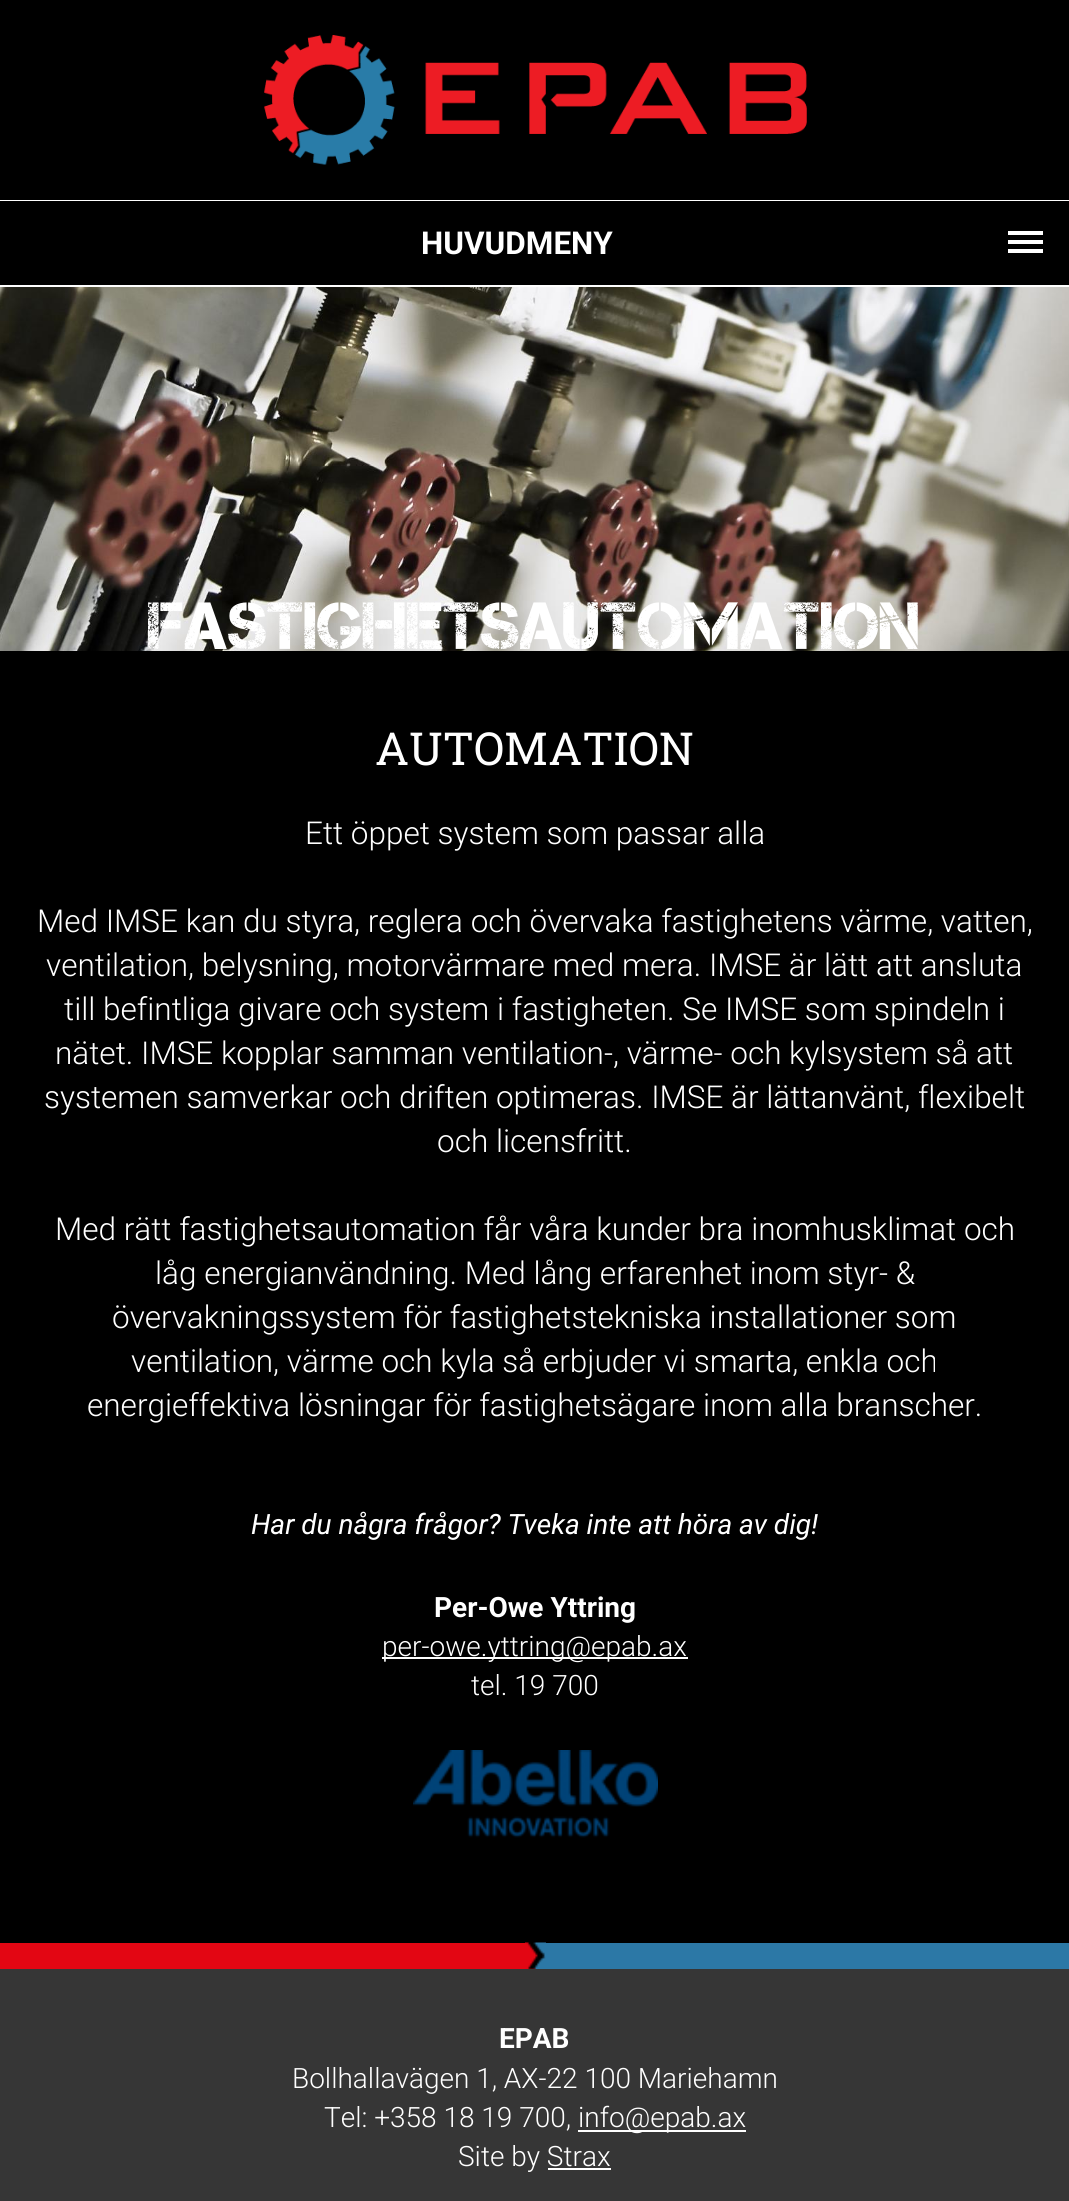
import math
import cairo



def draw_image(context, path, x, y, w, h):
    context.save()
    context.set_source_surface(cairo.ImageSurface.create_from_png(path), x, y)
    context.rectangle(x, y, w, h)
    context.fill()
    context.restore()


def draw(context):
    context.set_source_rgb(0, 0, 0)
    context.paint()
    draw_image(context, "images/1.png", 264, 35, 543, 130)
    context.set_source_rgb(1, 1, 1)
    context.rectangle(0, 200, 1069, 1)
    context.fill()
    context.rectangle(0, 285, 1069, 2)
    context.fill()
    context.rectangle(1008, 249, 35, 4)
    context.fill()
    context.rectangle(1008, 240, 35, 4)
    context.fill()
    context.rectangle(1008, 231, 35, 4)
    context.fill()
    draw_image(context, "images/2.png", 0, 287, 1069, 364)
    context.rectangle(382, 1657, 306, 2)
    context.fill()
    draw_image(context, "images/3.png", 413, 1750, 245, 88)
    context.set_source_rgb(54 / 255, 54 / 255, 54 / 255)
    context.rectangle(0, 1969, 1069, 232)
    context.fill()
    context.set_source_rgb(44 / 255, 120 / 255, 166 / 255)
    context.rectangle(536, 1943, 533, 26)
    context.fill()
    context.set_source_rgb(227 / 255, 6 / 255, 19 / 255)
    context.rectangle(0, 1943, 536, 26)
    context.fill()
    draw_image(context, "images/4.png", 525, 1942, 21, 27)
    context.set_source_rgb(1, 1, 1)
    context.rectangle(578, 2130, 168, 2)
    context.fill()
    context.rectangle(548, 2168, 63, 2)
    context.fill()
    context.select_font_face("Roboto", cairo.FontSlant.NORMAL, cairo.FontWeight.BOLD)
    context.set_font_size(31.5)
    context.move_to(421, 254)
    context.show_text("HUVUDMENY")
    context.select_font_face("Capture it")
    context.set_font_size(66.5)
    context.move_to(148, 649)
    context.show_text("FASTIGHETSAUTOMATION")
    context.select_font_face("Roboto Slab")
    context.set_font_size(45.5)
    context.move_to(375, 765)
    context.show_text("AUTOMATION")
    context.select_font_face("Roboto Light")
    context.set_font_size(31.5)
    context.move_to(305, 844)
    context.show_text("Ett öppet system som passar alla")
    context.move_to(37, 932)
    context.show_text("Med IMSE kan du styra, reglera och övervaka fastighetens värme, vatten,")
    context.move_to(46, 976)
    context.show_text("ventilation, belysning, motorvärmare med mera. IMSE är lätt att ansluta")
    context.move_to(64, 1020)
    context.show_text("till befintliga givare och system i fastigheten. Se IMSE som spindeln i")
    context.move_to(55, 1064)
    context.show_text("nätet. IMSE kopplar samman ventilation-, värme- och kylsystem så att")
    context.move_to(44, 1108)
    context.show_text("systemen samverkar och driften optimeras. IMSE är lättanvänt, flexibelt")
    context.move_to(437, 1152)
    context.show_text("och licensfritt.")
    context.move_to(55, 1240)
    context.show_text("Med rätt fastighetsautomation får våra kunder bra inomhusklimat och")
    context.move_to(155, 1284)
    context.show_text("låg energianvändning. Med lång erfarenhet inom styr- &")
    context.move_to(112, 1328)
    context.show_text("övervakningssystem för fastighetstekniska installationer som")
    context.move_to(131, 1372)
    context.show_text("ventilation, värme och kyla så erbjuder vi smarta, enkla och")
    context.move_to(87, 1416)
    context.show_text("energieffektiva lösningar för fastighetsägare inom alla branscher.")
    context.select_font_face("Roboto", cairo.FontSlant.ITALIC)
    context.set_font_size(28)
    context.move_to(251, 1534)
    context.show_text("Har du några frågor? Tveka inte att höra av dig!")
    context.select_font_face("Roboto", cairo.FontSlant.NORMAL, cairo.FontWeight.BOLD)
    context.move_to(434, 1617)
    context.show_text("Per-Owe Yttring")
    context.select_font_face("Roboto Light")
    context.move_to(382, 1656)
    context.show_text("per-owe.yttring@epab.ax")
    context.move_to(471, 1695)
    context.show_text("tel. 19 700")
    context.select_font_face("Roboto", cairo.FontSlant.NORMAL, cairo.FontWeight.BOLD)
    context.move_to(499, 2048)
    context.show_text("EPAB")
    context.select_font_face("Roboto Light")
    context.move_to(292, 2088)
    context.show_text("Bollhallavägen 1, AX-22 100 Mariehamn")
    context.move_to(324, 2127)
    context.show_text("Tel: +358 18 19 700,")
    context.move_to(578, 2127)
    context.show_text("info@epab.ax")
    context.move_to(458, 2166)
    context.show_text("Site by Strax")


surface = cairo.ImageSurface(cairo.Format.RGB24, 1069, 2201)
context = cairo.Context(surface)
options = cairo.FontOptions()
options.set_hint_metrics(cairo.HintMetrics.OFF)
options.set_hint_style(cairo.HintStyle.NONE)
context.set_font_options(options)
context.set_miter_limit(4)
draw(context)
surface.write_to_png("out.png")
